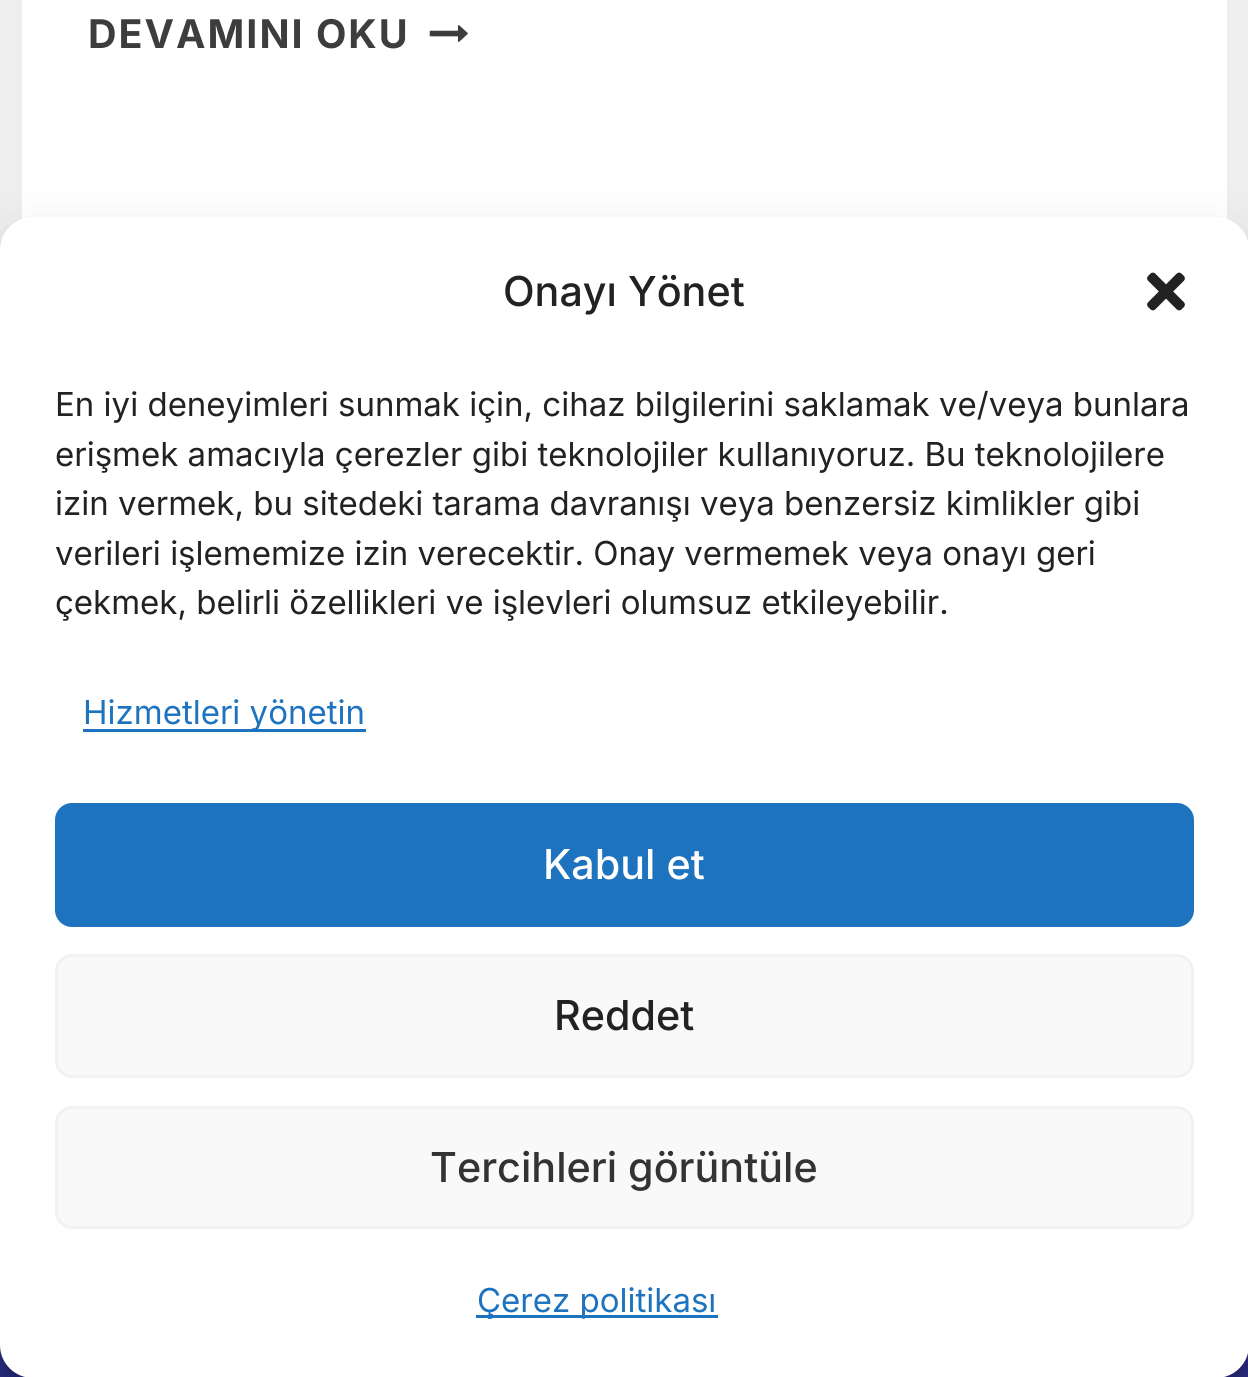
import math
import cairo



def draw_spaced(context, x, y, s, letter, word):
    context.move_to(x, y)
    for ch in s:
        context.show_text(ch)
        context.rel_move_to(letter + word * (ch == ' '), 0)


def rounded_rect(context, x, y, w, h, r):
    context.new_sub_path()
    for i, (u, v) in enumerate([(x + w - r, y + h - r), (x + r, y + h - r), (x + r, y + r), (x + w - r, y + r)]):
        context.arc(u, v, r, i * math.pi / 2, (i + 1) * math.pi / 2)
    context.close_path()


def draw_shadow(context, x, y, w, h, r, blur, alpha):
    context.push_group_with_content(cairo.Content.ALPHA)
    context.set_operator(cairo.Operator.SOURCE)
    for i in range(15, -16, -2):
        e = blur * i / 6
        if min(w, h) + 2 * e > 0:
            context.set_source_rgba(0, 0, 0, alpha * math.erfc((i - 1) / 8.5) / 2)
            rounded_rect(context, x - e, y - e, w + 2 * e, h + 2 * e, max(0, min(r + e + blur * .6, min(w, h) / 2 + e)))
            context.fill()
    context.mask(context.pop_group())


def draw_image(context, path, x, y, w, h):
    context.save()
    context.set_source_surface(cairo.ImageSurface.create_from_png(path), x, y)
    context.rectangle(x, y, w, h)
    context.fill()
    context.restore()


def draw(context):
    context.set_source_rgb(238 / 255, 238 / 255, 238 / 255)
    context.paint()
    context.set_source_rgb(1, 1, 1)
    context.rectangle(22, 0, 1205, 219)
    context.fill()
    draw_image(context, "images/1.png", 429, 25, 39, 17)
    context.set_source_rgb(46 / 255, 49 / 255, 146 / 255)
    context.rectangle(0, 1345, 1248, 32)
    context.fill()
    context.set_source_rgb(0, 0, 0)
    draw_shadow(context, 0, 234, 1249, 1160, 33, 8, 0.23)
    draw_shadow(context, 0, 245, 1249, 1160, 33, 27.5, 0.19)
    context.set_source_rgb(1, 1, 1)
    rounded_rect(context, 0, 217, 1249, 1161, 33)
    context.fill()
    draw_image(context, "images/2.png", 1147, 272, 38, 39)
    context.set_source_rgb(30 / 255, 115 / 255, 190 / 255)
    context.rectangle(83, 729, 283, 3)
    context.fill()
    rounded_rect(context, 56.5, 804.5, 1136, 121, 15.5)
    context.fill_preserve()
    context.set_line_width(3)
    context.stroke()
    context.set_source_rgb(249 / 255, 249 / 255, 249 / 255)
    rounded_rect(context, 56.5, 955.5, 1136, 121, 15.5)
    context.fill_preserve()
    context.set_source_rgb(242 / 255, 242 / 255, 242 / 255)
    context.stroke()
    context.set_source_rgb(249 / 255, 249 / 255, 249 / 255)
    rounded_rect(context, 56.5, 1107.5, 1136, 120, 15.5)
    context.fill_preserve()
    context.set_source_rgb(242 / 255, 242 / 255, 242 / 255)
    context.stroke()
    context.set_source_rgb(30 / 255, 115 / 255, 190 / 255)
    context.rectangle(476, 1315, 242, 3)
    context.fill()
    context.select_font_face("Inter", cairo.FontSlant.NORMAL, cairo.FontWeight.BOLD)
    context.set_font_size(39.5)
    context.set_source_rgb(61 / 255, 61 / 255, 61 / 255)
    draw_spaced(context, 88, 48, "DEVAMINI OKU", 2, 0)
    context.select_font_face("Inter Medium")
    context.set_font_size(41.25)
    context.set_source_rgb(34 / 255, 34 / 255, 34 / 255)
    context.move_to(503, 306)
    context.show_text("Onayı Yönet")
    context.select_font_face("Inter")
    context.set_font_size(33)
    context.move_to(55, 416)
    context.show_text("En iyi deneyimleri sunmak için, cihaz bilgilerini saklamak ve/veya bunlara")
    context.move_to(55, 466)
    context.show_text("erişmek amacıyla çerezler gibi teknolojiler kullanıyoruz. Bu teknolojilere")
    context.move_to(55, 515)
    context.show_text("izin vermek, bu sitedeki tarama davranışı veya benzersiz kimlikler gibi")
    context.move_to(55, 565)
    context.show_text("verileri işlememize izin verecektir. Onay vermemek veya onayı geri")
    context.move_to(55, 614)
    context.show_text("çekmek, belirli özellikleri ve işlevleri olumsuz etkileyebilir.")
    context.set_source_rgb(30 / 255, 115 / 255, 190 / 255)
    context.move_to(83, 724)
    context.show_text("Hizmetleri yönetin")
    context.select_font_face("Inter Medium")
    context.set_font_size(41.25)
    context.set_source_rgb(1, 1, 1)
    context.move_to(543, 879)
    context.show_text("Kabul et")
    context.set_source_rgb(34 / 255, 34 / 255, 34 / 255)
    context.move_to(554, 1030)
    context.show_text("Reddet")
    context.set_source_rgb(51 / 255, 51 / 255, 51 / 255)
    context.move_to(430, 1182)
    context.show_text("Tercihleri görüntüle")
    context.select_font_face("Inter")
    context.set_font_size(33)
    context.set_source_rgb(30 / 255, 115 / 255, 190 / 255)
    context.move_to(477, 1312)
    context.show_text("Çerez politikası")


surface = cairo.ImageSurface(cairo.Format.RGB24, 1248, 1377)
context = cairo.Context(surface)
options = cairo.FontOptions()
options.set_hint_metrics(cairo.HintMetrics.OFF)
options.set_hint_style(cairo.HintStyle.NONE)
context.set_font_options(options)
context.set_miter_limit(4)
draw(context)
surface.write_to_png("out.png")
